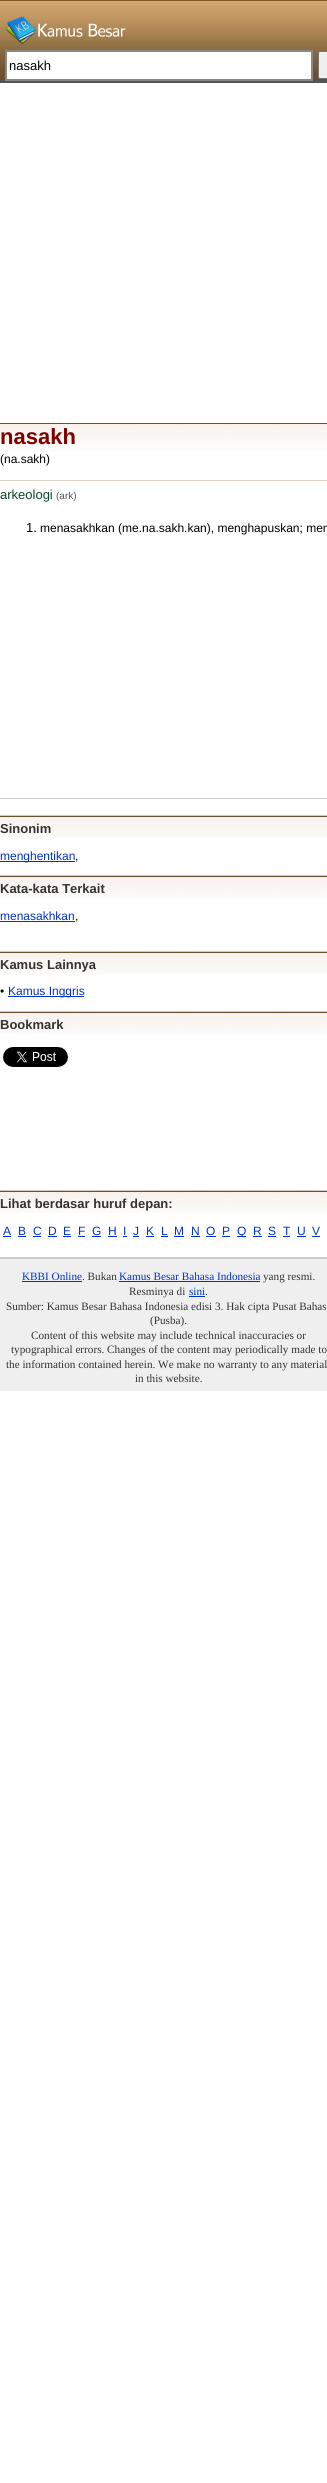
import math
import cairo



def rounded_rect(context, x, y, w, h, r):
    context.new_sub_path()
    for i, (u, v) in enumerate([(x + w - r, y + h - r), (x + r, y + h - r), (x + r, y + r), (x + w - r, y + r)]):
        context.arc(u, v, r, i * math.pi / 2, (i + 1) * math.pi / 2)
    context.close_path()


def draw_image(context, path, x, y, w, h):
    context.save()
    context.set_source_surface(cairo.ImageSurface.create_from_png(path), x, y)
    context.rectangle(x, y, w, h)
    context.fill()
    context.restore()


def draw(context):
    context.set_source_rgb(1, 1, 1)
    context.paint()
    draw_image(context, "images/1.png", 0, 0, 327, 80)
    context.set_source_rgb(85 / 255, 85 / 255, 85 / 255)
    context.rectangle(0, 80, 327, 3)
    context.fill()
    draw_image(context, "images/2.png", 6, 16, 120, 28)
    context.set_source_rgb(1, 1, 1)
    context.rectangle(6, 51, 306, 29)
    context.fill_preserve()
    context.set_source_rgb(136 / 255, 136 / 255, 136 / 255)
    context.stroke()
    context.set_source_rgb(239 / 255, 239 / 255, 239 / 255)
    rounded_rect(context, 318.5, 51.5, 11, 27, 1.5)
    context.fill_preserve()
    context.set_source_rgb(118 / 255, 118 / 255, 118 / 255)
    context.set_line_width(1)
    context.stroke()
    draw_image(context, "images/3.png", 0, 423, 327, 28)
    draw_image(context, "images/4.png", 0, 480, 327, 6)
    context.set_source_rgb(204 / 255, 204 / 255, 204 / 255)
    context.rectangle(0, 798, 327, 1)
    context.fill()
    draw_image(context, "images/5.png", 0, 816, 327, 22)
    context.rectangle(0, 815, 327, 1)
    context.fill()
    context.set_source_rgb(0, 51 / 255, 204 / 255)
    context.rectangle(0, 861, 75, 1)
    context.fill()
    draw_image(context, "images/5.png", 0, 876, 327, 22)
    context.set_source_rgb(204 / 255, 204 / 255, 204 / 255)
    context.rectangle(0, 875, 327, 1)
    context.fill()
    context.set_source_rgb(0, 51 / 255, 204 / 255)
    context.rectangle(0, 921, 75, 1)
    context.fill()
    draw_image(context, "images/5.png", 0, 952, 327, 22)
    context.set_source_rgb(204 / 255, 204 / 255, 204 / 255)
    context.rectangle(0, 951, 327, 1)
    context.fill()
    context.set_source_rgb(0, 51 / 255, 204 / 255)
    context.rectangle(8, 996, 76, 1)
    context.fill()
    draw_image(context, "images/5.png", 0, 1012, 327, 22)
    context.set_source_rgb(204 / 255, 204 / 255, 204 / 255)
    context.rectangle(0, 1011, 327, 1)
    context.fill()
    draw_image(context, "images/6.png", 3, 1047, 65, 20)
    draw_image(context, "images/5.png", 0, 1191, 327, 22)
    context.rectangle(0, 1190, 327, 1)
    context.fill()
    context.set_source_rgb(0, 51 / 255, 204 / 255)
    context.rectangle(3, 1236, 8, 1)
    context.fill()
    context.rectangle(18, 1236, 8, 1)
    context.fill()
    context.rectangle(33, 1236, 8, 1)
    context.fill()
    context.rectangle(48, 1236, 9, 1)
    context.fill()
    context.rectangle(63, 1236, 8, 1)
    context.fill()
    context.rectangle(78, 1236, 7, 1)
    context.fill()
    context.rectangle(92, 1236, 9, 1)
    context.fill()
    context.rectangle(108, 1236, 9, 1)
    context.fill()
    context.rectangle(123, 1236, 4, 1)
    context.fill()
    context.rectangle(133, 1236, 6, 1)
    context.fill()
    context.rectangle(146, 1236, 8, 1)
    context.fill()
    context.rectangle(161, 1236, 7, 1)
    context.fill()
    context.rectangle(174, 1236, 10, 1)
    context.fill()
    context.rectangle(191, 1236, 9, 1)
    context.fill()
    context.rectangle(206, 1236, 10, 1)
    context.fill()
    context.rectangle(222, 1236, 8, 1)
    context.fill()
    context.rectangle(237, 1236, 9, 1)
    context.fill()
    context.rectangle(253, 1236, 9, 1)
    context.fill()
    context.rectangle(268, 1236, 8, 1)
    context.fill()
    context.rectangle(283, 1236, 7, 1)
    context.fill()
    context.rectangle(297, 1236, 9, 1)
    context.fill()
    context.rectangle(312, 1236, 8, 1)
    context.fill()
    context.set_source_rgb(239 / 255, 239 / 255, 239 / 255)
    context.rectangle(0, 1259, 327, 132)
    context.fill()
    context.set_source_rgb(204 / 255, 204 / 255, 204 / 255)
    context.rectangle(0, 1257, 327, 2)
    context.fill()
    context.set_source_rgb(0, 51 / 255, 204 / 255)
    context.rectangle(22, 1281, 60, 1)
    context.fill()
    context.rectangle(119, 1281, 141, 1)
    context.fill()
    context.rectangle(189, 1296, 16, 1)
    context.fill()
    context.select_font_face("Liberation Sans")
    context.set_font_size(13)
    context.set_source_rgb(0, 0, 0)
    context.move_to(9, 70)
    context.show_text("nasakh")
    context.select_font_face("Liberation Sans", cairo.FontSlant.NORMAL, cairo.FontWeight.BOLD)
    context.set_font_size(22)
    context.set_source_rgb(128 / 255, 0, 0)
    context.move_to(0, 444)
    context.show_text("nasakh")
    context.select_font_face("Liberation Sans")
    context.set_font_size(12)
    context.set_source_rgb(0, 0, 0)
    context.move_to(0, 463)
    context.show_text("(na.sakh)")
    context.set_font_size(13)
    context.set_source_rgb(11 / 255, 70 / 255, 39 / 255)
    context.move_to(0, 499)
    context.show_text("arkeologi")
    context.set_font_size(10)
    context.set_source_rgb(85 / 255, 85 / 255, 85 / 255)
    context.move_to(56, 499)
    context.show_text("(ark)")
    context.set_font_size(13)
    context.set_source_rgb(0, 0, 0)
    context.move_to(26, 532)
    context.show_text("1.")
    context.set_font_size(12)
    context.move_to(40, 532)
    context.show_text("menasakhkan (me.na.sakh.kan), menghapuskan; men")
    context.select_font_face("Liberation Sans", cairo.FontSlant.NORMAL, cairo.FontWeight.BOLD)
    context.set_font_size(13)
    context.set_source_rgb(51 / 255, 51 / 255, 51 / 255)
    context.move_to(0, 833)
    context.show_text("Sinonim")
    context.select_font_face("Liberation Sans")
    context.set_font_size(12)
    context.set_source_rgb(0, 51 / 255, 204 / 255)
    context.move_to(0, 860)
    context.show_text("menghentikan")
    context.set_source_rgb(0, 0, 0)
    context.move_to(75, 860)
    context.show_text(",")
    context.select_font_face("Liberation Sans", cairo.FontSlant.NORMAL, cairo.FontWeight.BOLD)
    context.set_font_size(13)
    context.set_source_rgb(51 / 255, 51 / 255, 51 / 255)
    context.move_to(0, 893)
    context.show_text("Kata-kata Terkait")
    context.select_font_face("Liberation Sans")
    context.set_font_size(12)
    context.set_source_rgb(0, 51 / 255, 204 / 255)
    context.move_to(0, 920)
    context.show_text("menasakhkan")
    context.set_source_rgb(0, 0, 0)
    context.move_to(75, 920)
    context.show_text(",")
    context.select_font_face("Liberation Sans", cairo.FontSlant.NORMAL, cairo.FontWeight.BOLD)
    context.set_font_size(13)
    context.set_source_rgb(51 / 255, 51 / 255, 51 / 255)
    context.move_to(0, 969)
    context.show_text("Kamus Lainnya")
    context.select_font_face("Liberation Sans")
    context.set_font_size(12)
    context.set_source_rgb(0, 0, 0)
    context.move_to(0, 995)
    context.show_text("•")
    context.set_source_rgb(0, 51 / 255, 204 / 255)
    context.move_to(8, 995)
    context.show_text("Kamus Inggris")
    context.select_font_face("Liberation Sans", cairo.FontSlant.NORMAL, cairo.FontWeight.BOLD)
    context.set_font_size(13)
    context.set_source_rgb(51 / 255, 51 / 255, 51 / 255)
    context.move_to(0, 1029)
    context.show_text("Bookmark")
    context.move_to(0, 1208)
    context.show_text("Lihat berdasar huruf depan:")
    context.select_font_face("Liberation Sans")
    context.set_font_size(12)
    context.set_source_rgb(0, 51 / 255, 204 / 255)
    context.move_to(3, 1235)
    context.show_text("A")
    context.move_to(18, 1235)
    context.show_text("B")
    context.move_to(33, 1235)
    context.show_text("C")
    context.move_to(48, 1235)
    context.show_text("D")
    context.move_to(63, 1235)
    context.show_text("E")
    context.move_to(78, 1235)
    context.show_text("F")
    context.move_to(92, 1235)
    context.show_text("G")
    context.move_to(108, 1235)
    context.show_text("H")
    context.move_to(123, 1235)
    context.show_text("I")
    context.move_to(133, 1235)
    context.show_text("J")
    context.move_to(146, 1235)
    context.show_text("K")
    context.move_to(161, 1235)
    context.show_text("L")
    context.move_to(174, 1235)
    context.show_text("M")
    context.move_to(191, 1235)
    context.show_text("N")
    context.move_to(206, 1235)
    context.show_text("O")
    context.move_to(222, 1235)
    context.show_text("P")
    context.move_to(237, 1235)
    context.show_text("Q")
    context.move_to(253, 1235)
    context.show_text("R")
    context.move_to(268, 1235)
    context.show_text("S")
    context.move_to(283, 1235)
    context.show_text("T")
    context.move_to(297, 1235)
    context.show_text("U")
    context.move_to(312, 1235)
    context.show_text("V")
    context.select_font_face("Liberation Serif")
    context.set_font_size(11.2)
    context.move_to(22, 1280)
    context.show_text("KBBI Online")
    context.set_source_rgb(51 / 255, 51 / 255, 51 / 255)
    context.move_to(82, 1280)
    context.show_text(". Bukan")
    context.set_source_rgb(0, 51 / 255, 204 / 255)
    context.move_to(119, 1280)
    context.show_text("Kamus Besar Bahasa Indonesia")
    context.set_source_rgb(51 / 255, 51 / 255, 51 / 255)
    context.move_to(263, 1280)
    context.show_text("yang resmi.")
    context.move_to(129, 1295)
    context.show_text("Resminya di")
    context.set_source_rgb(0, 51 / 255, 204 / 255)
    context.move_to(189, 1295)
    context.show_text("sini")
    context.set_source_rgb(51 / 255, 51 / 255, 51 / 255)
    context.move_to(205, 1295)
    context.show_text(".")
    context.move_to(6, 1310)
    context.show_text("Sumber: Kamus Besar Bahasa Indonesia edisi 3. Hak cipta Pusat Bahas")
    context.move_to(150, 1324)
    context.show_text("(Pusba).")
    context.move_to(31, 1339)
    context.show_text("Content of this website may include technical inaccuracies or")
    context.move_to(11, 1353)
    context.show_text("typographical errors. Changes of the content may periodically made to")
    context.move_to(6, 1368)
    context.show_text("the information contained herein. We make no warranty to any material")
    context.move_to(135, 1382)
    context.show_text("in this website.")


surface = cairo.ImageSurface(cairo.Format.RGB24, 327, 2483)
context = cairo.Context(surface)
options = cairo.FontOptions()
options.set_hint_metrics(cairo.HintMetrics.OFF)
options.set_hint_style(cairo.HintStyle.NONE)
context.set_font_options(options)
context.set_miter_limit(4)
draw(context)
surface.write_to_png("out.png")
